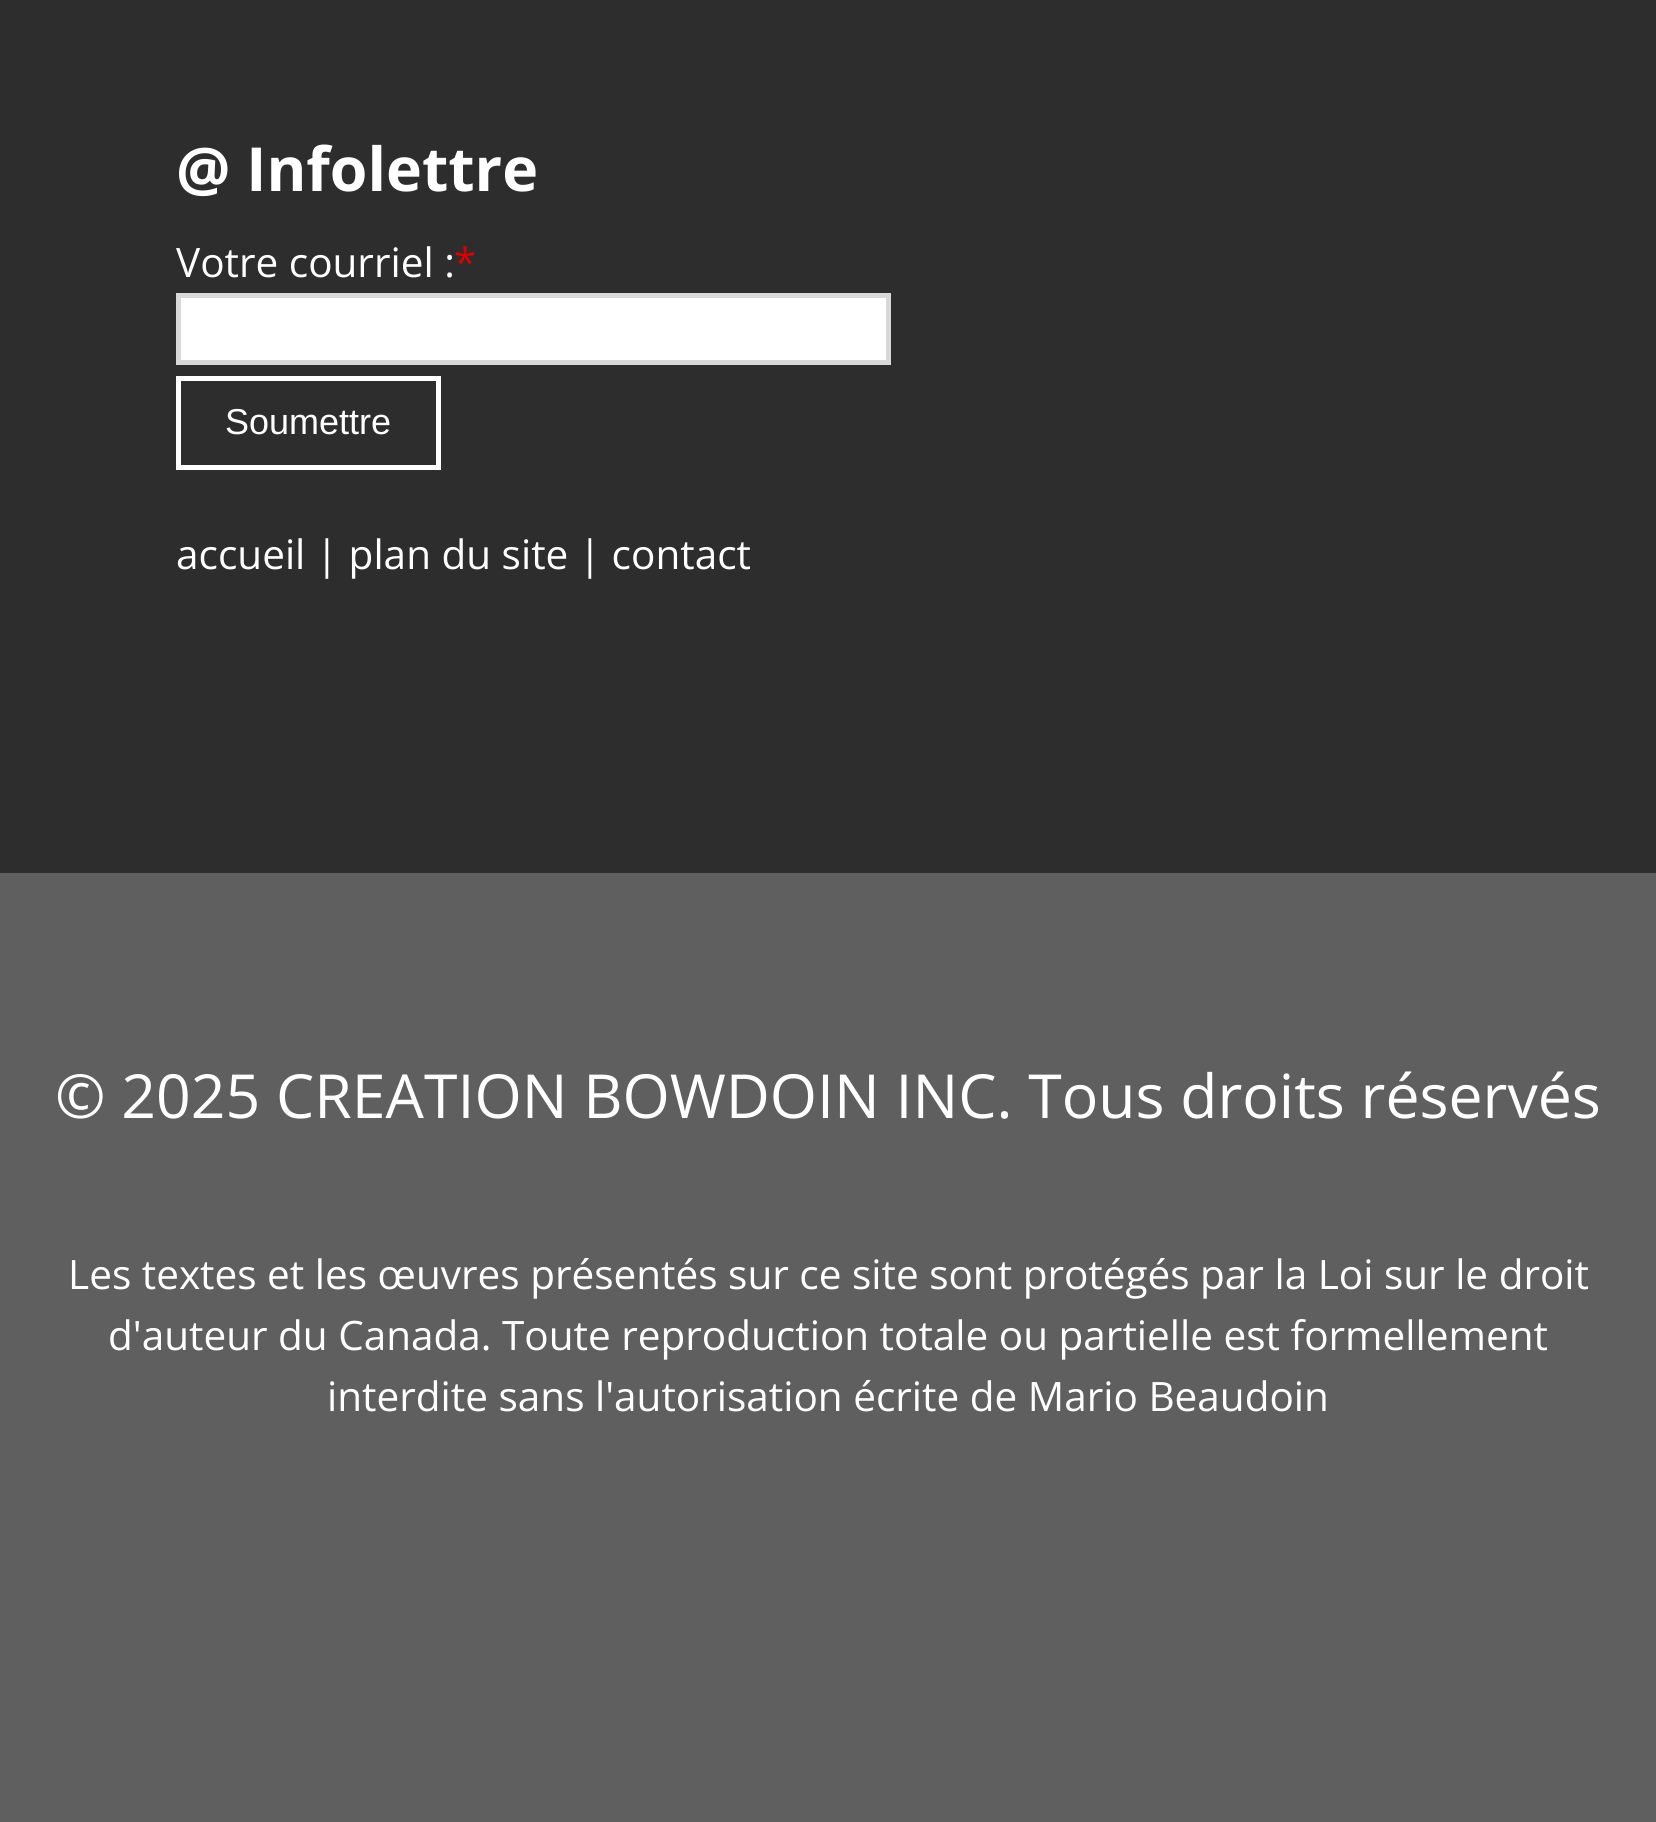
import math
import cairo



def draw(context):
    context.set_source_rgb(45 / 255, 45 / 255, 45 / 255)
    context.paint()
    context.set_source_rgb(1, 1, 1)
    context.rectangle(178.5, 295.5, 710, 67)
    context.fill_preserve()
    context.set_source_rgb(217 / 255, 217 / 255, 217 / 255)
    context.set_line_width(5)
    context.stroke()
    context.rectangle(178.5, 378.5, 260, 89)
    context.set_source_rgb(1, 1, 1)
    context.stroke()
    context.set_source_rgb(95 / 255, 95 / 255, 95 / 255)
    context.rectangle(0, 873, 1656, 949)
    context.fill()
    context.select_font_face("Open Sans", cairo.FontSlant.NORMAL, cairo.FontWeight.BOLD)
    context.set_font_size(60.75)
    context.set_source_rgb(1, 1, 1)
    context.move_to(176, 191)
    context.show_text("@ Infolettre")
    context.select_font_face("Open Sans")
    context.set_font_size(40.5)
    context.move_to(176, 277)
    context.show_text("Votre courriel :")
    context.set_source_rgb(221 / 255, 0, 0)
    context.move_to(454, 277)
    context.show_text("*")
    context.select_font_face("Liberation Sans")
    context.set_font_size(36)
    context.set_source_rgb(1, 1, 1)
    context.move_to(225, 434)
    context.show_text("Soumettre")
    context.select_font_face("Open Sans")
    context.set_font_size(40.5)
    context.move_to(176, 569)
    context.show_text("accueil | plan du site | contact")
    context.set_font_size(60.75)
    context.move_to(55, 1118)
    context.show_text("© 2025 CREATION BOWDOIN INC. Tous droits réservés")
    context.set_font_size(40.5)
    context.move_to(68, 1289)
    context.show_text("Les textes et les œuvres présentés sur ce site sont protégés par la Loi sur le droit")
    context.move_to(108, 1350)
    context.show_text("d'auteur du Canada. Toute reproduction totale ou partielle est formellement")
    context.move_to(327, 1411)
    context.show_text("interdite sans l'autorisation écrite de Mario Beaudoin")


surface = cairo.ImageSurface(cairo.Format.RGB24, 1656, 1822)
context = cairo.Context(surface)
options = cairo.FontOptions()
options.set_hint_metrics(cairo.HintMetrics.OFF)
options.set_hint_style(cairo.HintStyle.NONE)
context.set_font_options(options)
context.set_miter_limit(4)
draw(context)
surface.write_to_png("out.png")
